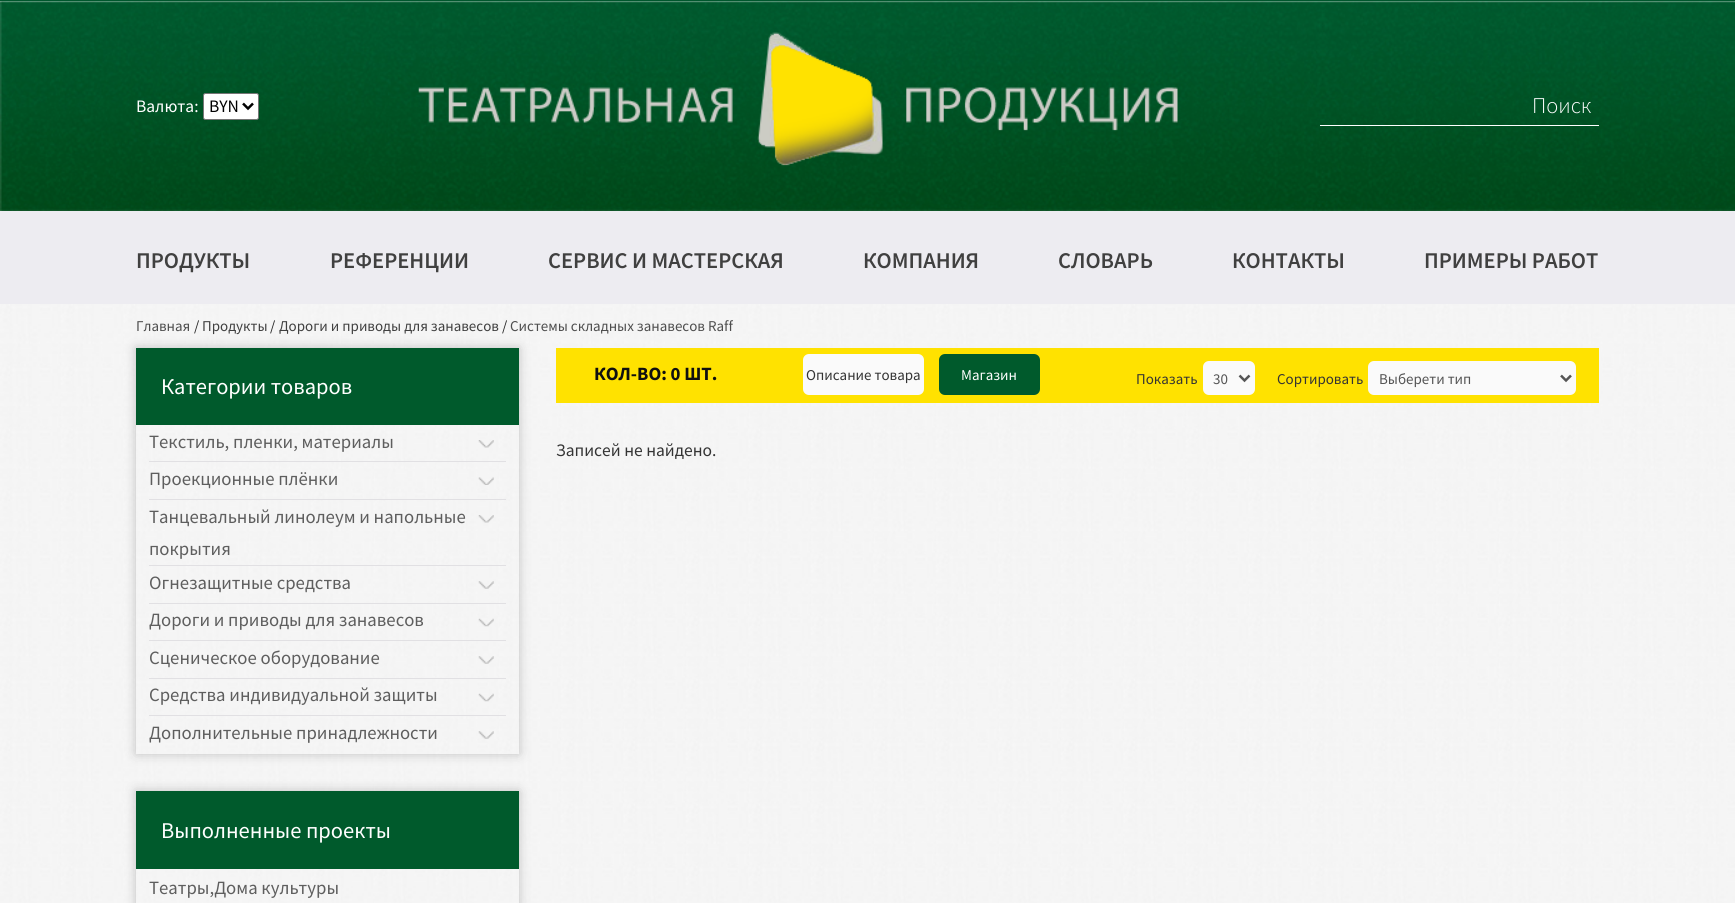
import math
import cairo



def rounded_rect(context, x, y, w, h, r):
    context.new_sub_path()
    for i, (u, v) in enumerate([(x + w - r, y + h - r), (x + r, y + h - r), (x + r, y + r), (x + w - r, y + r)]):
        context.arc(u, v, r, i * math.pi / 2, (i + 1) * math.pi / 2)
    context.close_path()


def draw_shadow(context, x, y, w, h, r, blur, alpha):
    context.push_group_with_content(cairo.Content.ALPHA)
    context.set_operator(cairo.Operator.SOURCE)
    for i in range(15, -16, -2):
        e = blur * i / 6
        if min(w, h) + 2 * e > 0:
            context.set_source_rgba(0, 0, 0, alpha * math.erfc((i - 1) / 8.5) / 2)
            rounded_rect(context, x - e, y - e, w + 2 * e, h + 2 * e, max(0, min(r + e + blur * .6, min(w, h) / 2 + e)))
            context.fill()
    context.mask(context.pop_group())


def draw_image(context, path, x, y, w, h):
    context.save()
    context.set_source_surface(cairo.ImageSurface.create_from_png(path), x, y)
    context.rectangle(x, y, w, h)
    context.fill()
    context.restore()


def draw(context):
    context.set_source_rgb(1, 1, 1)
    context.paint()
    draw_image(context, "images/1.png", 0, 1, 1735, 210)
    context.set_source_rgb(0, 87 / 255, 45 / 255)
    context.rectangle(0, 0, 1735, 1)
    context.fill()
    context.set_source_rgb(1, 1, 1)
    rounded_rect(context, 203.5, 93.5, 55, 26, 2)
    context.fill_preserve()
    context.set_source_rgb(118 / 255, 118 / 255, 118 / 255)
    context.set_line_width(1)
    context.stroke()
    context.new_path()
    context.move_to(243, 103.5)
    context.line_to(248, 108.5)
    context.line_to(253, 103.5)
    context.set_source_rgb(0, 0, 0)
    context.set_line_width(2.5)
    context.stroke()
    draw_image(context, "images/2.png", 418, 32, 760, 134)
    context.set_source_rgb(1, 1, 1)
    context.rectangle(1320, 125, 279, 1)
    context.fill()
    context.set_source_rgb(237 / 255, 236 / 255, 241 / 255)
    context.rectangle(0, 211, 1735, 93)
    context.fill()
    draw_image(context, "images/3.png", 0, 304, 1735, 599)
    context.save()
    context.set_fill_rule(cairo.FillRule.EVEN_ODD)
    context.new_path()
    context.move_to(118, 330)
    context.line_to(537, 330)
    context.line_to(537, 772)
    context.line_to(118, 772)
    context.close_path()
    context.move_to(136, 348)
    context.line_to(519, 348)
    context.line_to(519, 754)
    context.line_to(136, 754)
    context.close_path()
    context.clip()
    context.set_source_rgb(102 / 255, 102 / 255, 102 / 255)
    draw_shadow(context, 136, 348, 383, 406, 0, 5.5, 0.36)
    context.restore()
    context.set_source_rgb(0, 90 / 255, 44 / 255)
    context.rectangle(136, 348, 383, 77)
    context.fill()
    context.set_source_rgb(225 / 255, 224 / 255, 227 / 255)
    context.rectangle(149, 461, 357, 1)
    context.fill()
    draw_image(context, "images/4.png", 478, 440, 16, 8)
    context.rectangle(149, 499, 357, 1)
    context.fill()
    draw_image(context, "images/5.png", 478, 477, 16, 8)
    context.rectangle(149, 565, 357, 1)
    context.fill()
    draw_image(context, "images/6.png", 478, 515, 16, 8)
    context.rectangle(149, 603, 357, 1)
    context.fill()
    draw_image(context, "images/7.png", 478, 581, 16, 8)
    context.rectangle(149, 640, 357, 1)
    context.fill()
    draw_image(context, "images/8.png", 478, 618, 16, 9)
    context.rectangle(149, 678, 357, 1)
    context.fill()
    draw_image(context, "images/9.png", 478, 656, 16, 8)
    context.rectangle(149, 715, 357, 1)
    context.fill()
    draw_image(context, "images/10.png", 478, 693, 16, 9)
    draw_image(context, "images/11.png", 478, 731, 16, 8)
    context.save()
    context.set_fill_rule(cairo.FillRule.EVEN_ODD)
    context.new_path()
    context.move_to(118, 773)
    context.line_to(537, 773)
    context.line_to(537, 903)
    context.line_to(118, 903)
    context.close_path()
    context.move_to(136, 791)
    context.line_to(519, 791)
    context.line_to(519, 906)
    context.line_to(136, 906)
    context.close_path()
    context.clip()
    context.set_source_rgb(102 / 255, 102 / 255, 102 / 255)
    draw_shadow(context, 136, 791, 383, 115, 0, 5.5, 0.36)
    context.restore()
    context.set_source_rgb(0, 90 / 255, 44 / 255)
    context.rectangle(136, 791, 383, 78)
    context.fill()
    context.set_source_rgb(1, 226 / 255, 0)
    context.rectangle(556, 348, 1043, 55)
    context.fill()
    context.set_source_rgb(250 / 255, 250 / 255, 250 / 255)
    rounded_rect(context, 803, 354, 121, 41, 6)
    context.fill()
    context.set_source_rgb(0, 90 / 255, 44 / 255)
    rounded_rect(context, 939, 354, 101, 41, 6)
    context.fill()
    context.set_source_rgb(250 / 255, 250 / 255, 250 / 255)
    rounded_rect(context, 1203, 361, 52, 34, 6)
    context.fill()
    context.new_path()
    context.move_to(1239.5, 375.5)
    context.line_to(1244.5, 380.5)
    context.line_to(1249.5, 375.5)
    context.set_source_rgb(85 / 255, 85 / 255, 85 / 255)
    context.stroke()
    context.set_source_rgb(250 / 255, 250 / 255, 250 / 255)
    rounded_rect(context, 1368, 361, 208, 34, 6)
    context.fill()
    context.new_path()
    context.move_to(1561, 375.5)
    context.line_to(1566, 380.5)
    context.line_to(1571, 375.5)
    context.set_source_rgb(85 / 255, 85 / 255, 85 / 255)
    context.stroke()
    context.select_font_face("Source Sans Pro")
    context.set_font_size(17.5)
    context.set_source_rgb(1, 1, 1)
    context.move_to(136, 112)
    context.show_text("Валюта:")
    context.set_source_rgb(0, 0, 0)
    context.move_to(209, 112)
    context.show_text("BYN")
    context.select_font_face("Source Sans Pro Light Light")
    context.set_font_size(22.5)
    context.set_source_rgb(1, 1, 1)
    context.move_to(1532, 113)
    context.show_text("Поиск")
    context.select_font_face("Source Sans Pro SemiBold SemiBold")
    context.set_source_rgb(64 / 255, 64 / 255, 64 / 255)
    context.move_to(136, 268)
    context.show_text("ПРОДУКТЫ")
    context.move_to(330, 268)
    context.show_text("РЕФЕРЕНЦИИ")
    context.move_to(548, 268)
    context.show_text("СЕРВИС И МАСТЕРСКАЯ")
    context.move_to(863, 268)
    context.show_text("КОМПАНИЯ")
    context.move_to(1058, 268)
    context.show_text("СЛОВАРЬ")
    context.move_to(1232, 268)
    context.show_text("КОНТАКТЫ")
    context.move_to(1424, 268)
    context.show_text("ПРИМЕРЫ РАБОТ")
    context.select_font_face("Source Sans Pro")
    context.set_font_size(15)
    context.set_source_rgb(78 / 255, 78 / 255, 78 / 255)
    context.move_to(136, 331)
    context.show_text("Главная")
    context.set_source_rgb(39 / 255, 39 / 255, 39 / 255)
    context.move_to(194, 331)
    context.show_text("/")
    context.set_source_rgb(64 / 255, 64 / 255, 64 / 255)
    context.move_to(202, 331)
    context.show_text("Продукты")
    context.set_source_rgb(39 / 255, 39 / 255, 39 / 255)
    context.move_to(270, 331)
    context.show_text("/")
    context.set_source_rgb(64 / 255, 64 / 255, 64 / 255)
    context.move_to(279, 331)
    context.show_text("Дороги и приводы для занавесов")
    context.set_source_rgb(39 / 255, 39 / 255, 39 / 255)
    context.move_to(502, 331)
    context.show_text("/")
    context.set_source_rgb(78 / 255, 78 / 255, 78 / 255)
    context.move_to(510, 331)
    context.show_text("Системы складных занавесов Raff")
    context.set_font_size(22.5)
    context.set_source_rgb(1, 1, 1)
    context.move_to(161, 394)
    context.show_text("Категории товаров")
    context.set_font_size(18.75)
    context.set_source_rgb(94 / 255, 94 / 255, 94 / 255)
    context.move_to(149, 448)
    context.show_text("Текстиль, пленки, материалы")
    context.move_to(149, 485)
    context.show_text("Проекционные плёнки")
    context.move_to(149, 523)
    context.show_text("Танцевальный линолеум и напольные")
    context.move_to(149, 555)
    context.show_text("покрытия")
    context.move_to(149, 589)
    context.show_text("Огнезащитные средства")
    context.move_to(149, 626)
    context.show_text("Дороги и приводы для занавесов")
    context.move_to(149, 664)
    context.show_text("Сценическое оборудование")
    context.move_to(149, 701)
    context.show_text("Средства индивидуальной защиты")
    context.move_to(149, 739)
    context.show_text("Дополнительные принадлежности")
    context.set_font_size(22.5)
    context.set_source_rgb(1, 1, 1)
    context.move_to(161, 838)
    context.show_text("Выполненные проекты")
    context.set_font_size(18.75)
    context.set_source_rgb(94 / 255, 94 / 255, 94 / 255)
    context.move_to(149, 894)
    context.show_text("Театры,Дома культуры")
    context.select_font_face("Source Sans Pro", cairo.FontSlant.NORMAL, cairo.FontWeight.BOLD)
    context.set_source_rgb(16 / 255, 16 / 255, 16 / 255)
    context.move_to(594, 380)
    context.show_text("КОЛ-ВО: 0 ШТ.")
    context.select_font_face("Source Sans Pro")
    context.set_font_size(15)
    context.set_source_rgb(52 / 255, 52 / 255, 52 / 255)
    context.move_to(806, 380)
    context.show_text("Описание товара")
    context.set_source_rgb(1, 1, 1)
    context.move_to(961, 380)
    context.show_text("Магазин")
    context.set_source_rgb(52 / 255, 52 / 255, 52 / 255)
    context.move_to(1136, 384)
    context.show_text("Показать")
    context.set_source_rgb(85 / 255, 85 / 255, 85 / 255)
    context.move_to(1213, 384)
    context.show_text("30")
    context.set_source_rgb(52 / 255, 52 / 255, 52 / 255)
    context.move_to(1277, 384)
    context.show_text("Сортировать")
    context.set_source_rgb(85 / 255, 85 / 255, 85 / 255)
    context.move_to(1379, 384)
    context.show_text("Выберети тип")
    context.set_font_size(17.5)
    context.set_source_rgb(52 / 255, 52 / 255, 52 / 255)
    context.move_to(556, 456)
    context.show_text("Записей не найдено.")


surface = cairo.ImageSurface(cairo.Format.RGB24, 1735, 903)
context = cairo.Context(surface)
options = cairo.FontOptions()
options.set_hint_metrics(cairo.HintMetrics.OFF)
options.set_hint_style(cairo.HintStyle.NONE)
context.set_font_options(options)
context.set_miter_limit(4)
draw(context)
surface.write_to_png("out.png")
